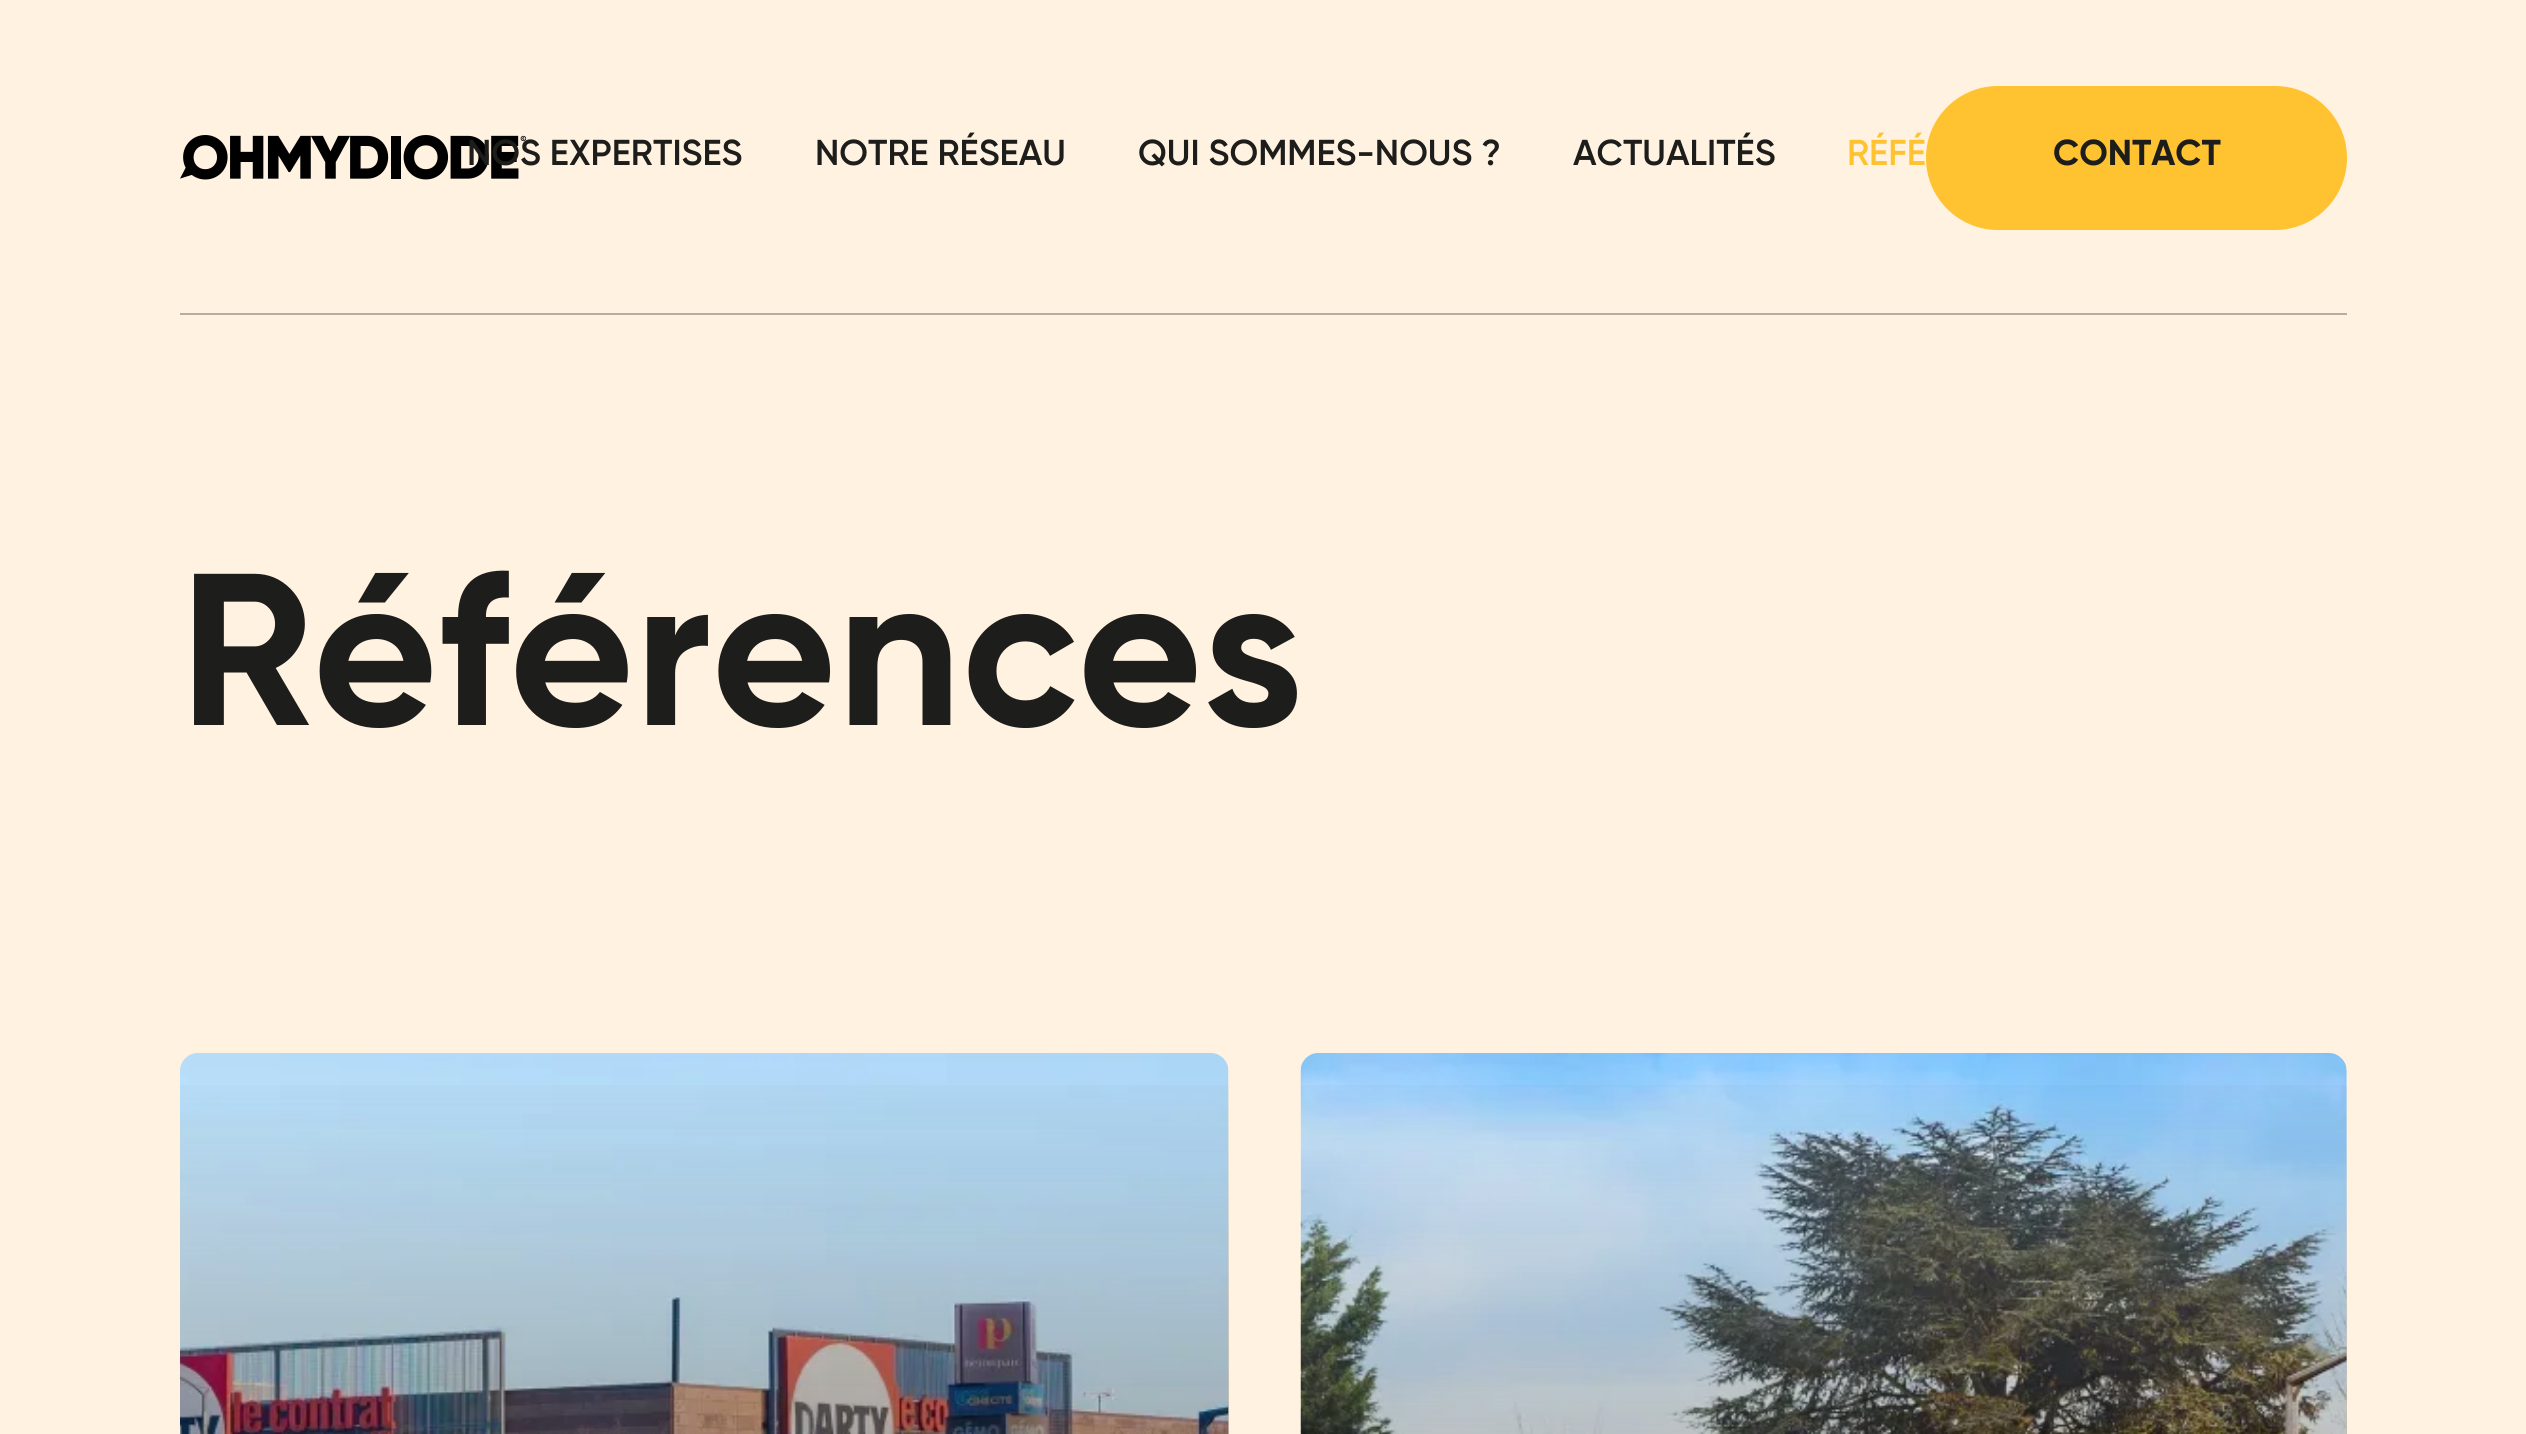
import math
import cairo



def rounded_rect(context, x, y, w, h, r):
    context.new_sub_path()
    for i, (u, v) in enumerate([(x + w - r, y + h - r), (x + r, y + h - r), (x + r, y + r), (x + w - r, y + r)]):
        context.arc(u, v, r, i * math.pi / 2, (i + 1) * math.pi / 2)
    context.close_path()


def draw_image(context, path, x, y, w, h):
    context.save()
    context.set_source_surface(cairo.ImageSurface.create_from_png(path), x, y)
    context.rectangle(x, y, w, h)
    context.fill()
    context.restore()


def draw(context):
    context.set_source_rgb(1, 242 / 255, 224 / 255)
    context.paint()
    context.set_source_rgb(183 / 255, 174 / 255, 161 / 255)
    context.rectangle(180, 313, 2167, 2)
    context.fill()
    draw_image(context, "images/1.png", 180, 135, 347, 45)
    context.set_source_rgb(1, 194 / 255, 49 / 255)
    rounded_rect(context, 1926, 86, 421, 144, 72)
    context.fill()
    draw_image(context, "images/2.png", 180, 1053, 1049, 381)
    gradient = cairo.LinearGradient(704, 1053, 704, 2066)
    gradient.add_color_stop_rgba(0, 29 / 255, 29 / 255, 27 / 255, 0)
    gradient.add_color_stop_rgba(1, 29 / 255, 29 / 255, 27 / 255, 0.68)
    context.set_source(gradient)
    context.rectangle(180, 1085, 1049, 349)
    context.fill()
    draw_image(context, "images/3.png", 1300, 1053, 1047, 381)
    gradient = cairo.LinearGradient(1824, 1053, 1824, 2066)
    gradient.add_color_stop_rgba(0, 29 / 255, 29 / 255, 27 / 255, 0)
    gradient.add_color_stop_rgba(1, 29 / 255, 29 / 255, 27 / 255, 0.68)
    context.set_source(gradient)
    context.rectangle(1301, 1085, 1046, 349)
    context.fill()
    context.select_font_face("Gilroy SemiBold")
    context.set_font_size(36)
    context.set_source_rgb(29 / 255, 29 / 255, 27 / 255)
    context.move_to(467, 165)
    context.show_text("NOS EXPERTISES")
    context.move_to(815, 165)
    context.show_text("NOTRE RÉSEAU")
    context.move_to(1138, 165)
    context.show_text("QUI SOMMES-NOUS ?")
    context.move_to(1573, 165)
    context.show_text("ACTUALITÉS")
    context.set_source_rgb(1, 194 / 255, 49 / 255)
    context.move_to(1847, 165)
    context.show_text("RÉFÉ")
    context.select_font_face("Gilroy", cairo.FontSlant.NORMAL, cairo.FontWeight.BOLD)
    context.set_source_rgb(29 / 255, 29 / 255, 27 / 255)
    context.move_to(2053, 165)
    context.show_text("CONTACT")
    context.set_font_size(216)
    context.move_to(180, 725)
    context.show_text("Références")


surface = cairo.ImageSurface(cairo.Format.RGB24, 2526, 1434)
context = cairo.Context(surface)
options = cairo.FontOptions()
options.set_hint_metrics(cairo.HintMetrics.OFF)
options.set_hint_style(cairo.HintStyle.NONE)
context.set_font_options(options)
context.set_miter_limit(4)
draw(context)
surface.write_to_png("out.png")
